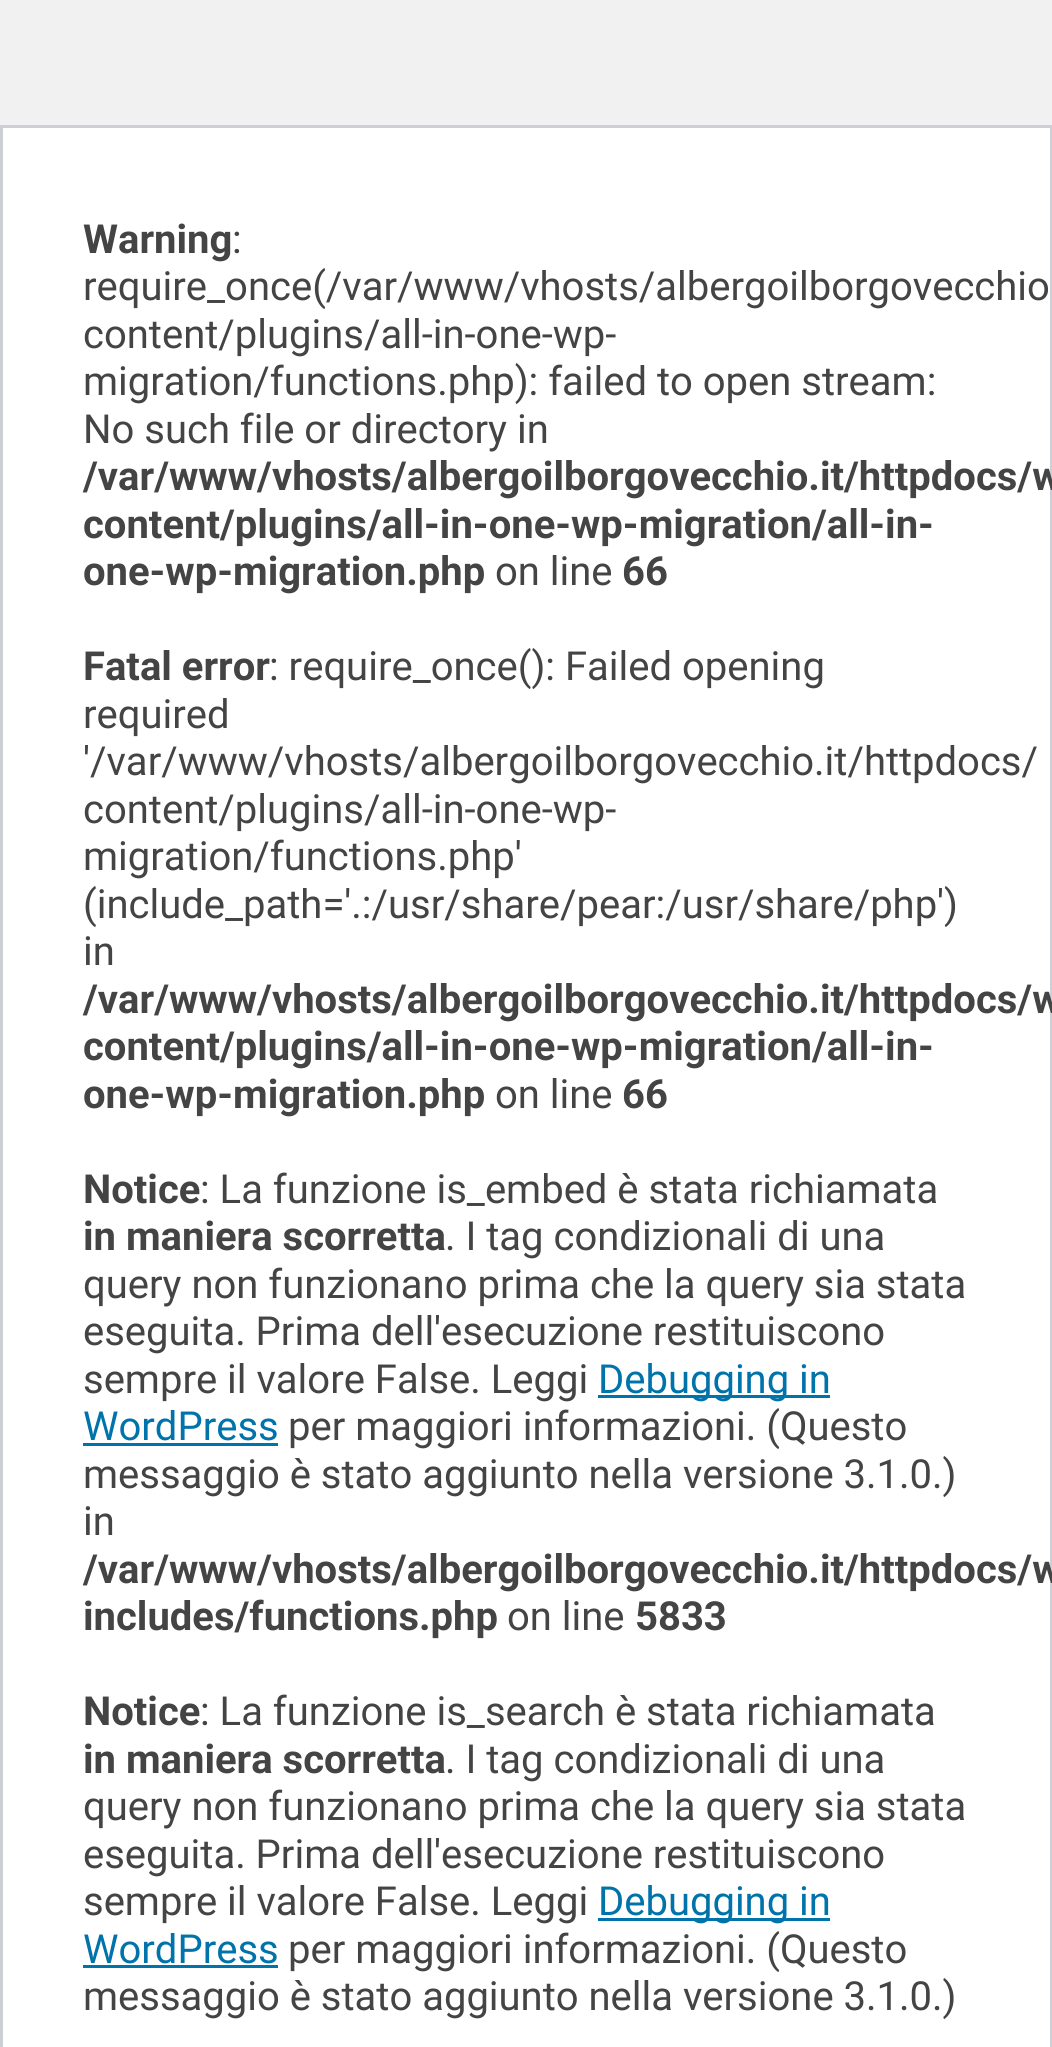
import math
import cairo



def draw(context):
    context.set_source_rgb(241 / 255, 241 / 255, 241 / 255)
    context.paint()
    context.set_source_rgb(1, 1, 1)
    context.rectangle(1.5, 126.5, 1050, 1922)
    context.fill_preserve()
    context.set_source_rgb(204 / 255, 208 / 255, 212 / 255)
    context.set_line_width(3)
    context.stroke()
    context.set_source_rgb(0, 115 / 255, 170 / 255)
    context.rectangle(598, 1395, 232, 3)
    context.fill()
    context.rectangle(83, 1443, 195, 3)
    context.fill()
    context.rectangle(598, 1918, 232, 3)
    context.fill()
    context.rectangle(83, 1965, 195, 3)
    context.fill()
    context.select_font_face("Roboto", cairo.FontSlant.NORMAL, cairo.FontWeight.BOLD)
    context.set_font_size(40)
    context.set_source_rgb(68 / 255, 68 / 255, 68 / 255)
    context.move_to(83, 253)
    context.show_text("Warning")
    context.select_font_face("Roboto")
    context.move_to(232, 253)
    context.show_text(":")
    context.move_to(83, 300)
    context.show_text("require_once(/var/www/vhosts/albergoilborgovecchio")
    context.move_to(83, 348)
    context.show_text("content/plugins/all-in-one-wp-")
    context.move_to(83, 395)
    context.show_text("migration/functions.php): failed to open stream:")
    context.move_to(83, 443)
    context.show_text("No such file or directory in")
    context.select_font_face("Roboto", cairo.FontSlant.NORMAL, cairo.FontWeight.BOLD)
    context.move_to(83, 490)
    context.show_text("/var/www/vhosts/albergoilborgovecchio.it/httpdocs/w")
    context.move_to(83, 538)
    context.show_text("content/plugins/all-in-one-wp-migration/all-in-")
    context.move_to(83, 585)
    context.show_text("one-wp-migration.php")
    context.select_font_face("Roboto")
    context.move_to(495, 585)
    context.show_text("on line")
    context.select_font_face("Roboto", cairo.FontSlant.NORMAL, cairo.FontWeight.BOLD)
    context.move_to(622, 585)
    context.show_text("66")
    context.move_to(83, 680)
    context.show_text("Fatal error")
    context.select_font_face("Roboto")
    context.move_to(269, 680)
    context.show_text(": require_once(): Failed opening")
    context.move_to(83, 728)
    context.show_text("required")
    context.move_to(83, 775)
    context.show_text("'/var/www/vhosts/albergoilborgovecchio.it/httpdocs/")
    context.move_to(83, 823)
    context.show_text("content/plugins/all-in-one-wp-")
    context.move_to(83, 870)
    context.show_text("migration/functions.php'")
    context.move_to(83, 918)
    context.show_text("(include_path='.:/usr/share/pear:/usr/share/php')")
    context.move_to(83, 965)
    context.show_text("in")
    context.select_font_face("Roboto", cairo.FontSlant.NORMAL, cairo.FontWeight.BOLD)
    context.move_to(83, 1013)
    context.show_text("/var/www/vhosts/albergoilborgovecchio.it/httpdocs/w")
    context.move_to(83, 1060)
    context.show_text("content/plugins/all-in-one-wp-migration/all-in-")
    context.move_to(83, 1108)
    context.show_text("one-wp-migration.php")
    context.select_font_face("Roboto")
    context.move_to(495, 1108)
    context.show_text("on line")
    context.select_font_face("Roboto", cairo.FontSlant.NORMAL, cairo.FontWeight.BOLD)
    context.move_to(622, 1108)
    context.show_text("66")
    context.move_to(83, 1203)
    context.show_text("Notice")
    context.select_font_face("Roboto")
    context.move_to(200, 1203)
    context.show_text(": La funzione is_embed è stata richiamata")
    context.select_font_face("Roboto", cairo.FontSlant.NORMAL, cairo.FontWeight.BOLD)
    context.move_to(83, 1250)
    context.show_text("in maniera scorretta")
    context.select_font_face("Roboto")
    context.move_to(445, 1250)
    context.show_text(". I tag condizionali di una")
    context.move_to(83, 1298)
    context.show_text("query non funzionano prima che la query sia stata")
    context.move_to(83, 1345)
    context.show_text("eseguita. Prima dell'esecuzione restituiscono")
    context.move_to(83, 1393)
    context.show_text("sempre il valore False. Leggi")
    context.set_source_rgb(0, 115 / 255, 170 / 255)
    context.move_to(598, 1393)
    context.show_text("Debugging in")
    context.move_to(83, 1440)
    context.show_text("WordPress")
    context.set_source_rgb(68 / 255, 68 / 255, 68 / 255)
    context.move_to(288, 1440)
    context.show_text("per maggiori informazioni. (Questo")
    context.move_to(83, 1488)
    context.show_text("messaggio è stato aggiunto nella versione 3.1.0.)")
    context.move_to(83, 1535)
    context.show_text("in")
    context.select_font_face("Roboto", cairo.FontSlant.NORMAL, cairo.FontWeight.BOLD)
    context.move_to(83, 1583)
    context.show_text("/var/www/vhosts/albergoilborgovecchio.it/httpdocs/w")
    context.move_to(83, 1630)
    context.show_text("includes/functions.php")
    context.select_font_face("Roboto")
    context.move_to(507, 1630)
    context.show_text("on line")
    context.select_font_face("Roboto", cairo.FontSlant.NORMAL, cairo.FontWeight.BOLD)
    context.move_to(635, 1630)
    context.show_text("5833")
    context.move_to(83, 1725)
    context.show_text("Notice")
    context.select_font_face("Roboto")
    context.move_to(200, 1725)
    context.show_text(": La funzione is_search è stata richiamata")
    context.select_font_face("Roboto", cairo.FontSlant.NORMAL, cairo.FontWeight.BOLD)
    context.move_to(83, 1773)
    context.show_text("in maniera scorretta")
    context.select_font_face("Roboto")
    context.move_to(445, 1773)
    context.show_text(". I tag condizionali di una")
    context.move_to(83, 1820)
    context.show_text("query non funzionano prima che la query sia stata")
    context.move_to(83, 1868)
    context.show_text("eseguita. Prima dell'esecuzione restituiscono")
    context.move_to(83, 1915)
    context.show_text("sempre il valore False. Leggi")
    context.set_source_rgb(0, 115 / 255, 170 / 255)
    context.move_to(598, 1915)
    context.show_text("Debugging in")
    context.move_to(83, 1963)
    context.show_text("WordPress")
    context.set_source_rgb(68 / 255, 68 / 255, 68 / 255)
    context.move_to(288, 1963)
    context.show_text("per maggiori informazioni. (Questo")
    context.move_to(83, 2010)
    context.show_text("messaggio è stato aggiunto nella versione 3.1.0.)")


surface = cairo.ImageSurface(cairo.Format.RGB24, 1052, 2047)
context = cairo.Context(surface)
options = cairo.FontOptions()
options.set_hint_metrics(cairo.HintMetrics.OFF)
options.set_hint_style(cairo.HintStyle.NONE)
context.set_font_options(options)
context.set_miter_limit(4)
draw(context)
surface.write_to_png("out.png")
